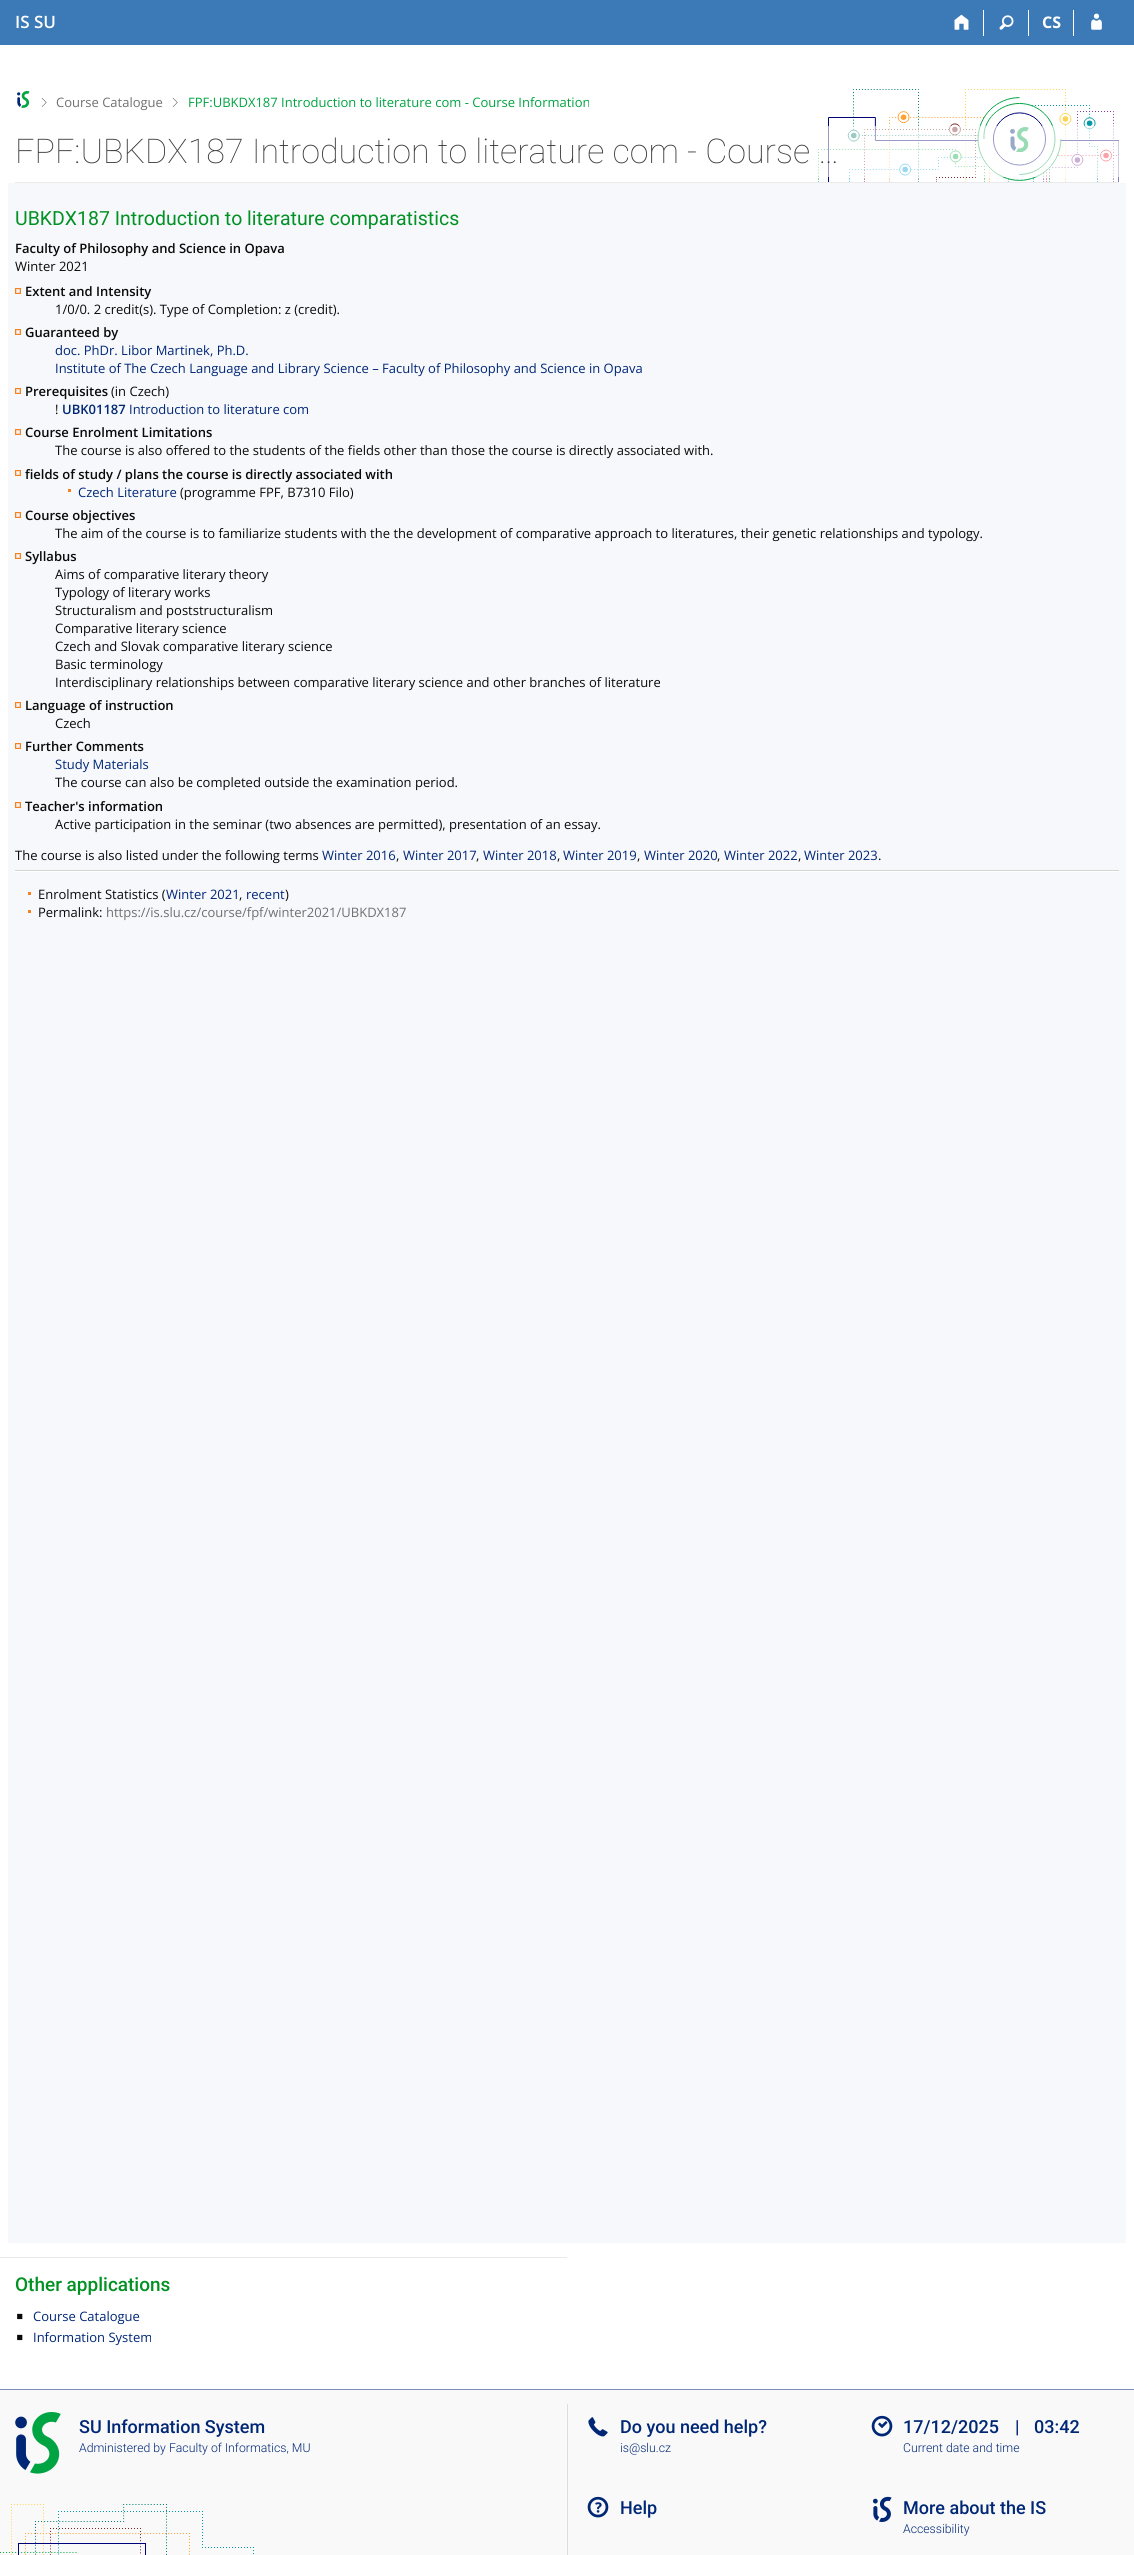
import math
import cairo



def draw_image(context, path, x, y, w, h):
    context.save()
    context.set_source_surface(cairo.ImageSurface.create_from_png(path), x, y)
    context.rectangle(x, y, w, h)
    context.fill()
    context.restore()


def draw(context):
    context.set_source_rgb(1, 1, 1)
    context.paint()
    context.set_source_rgb(60 / 255, 122 / 255, 183 / 255)
    context.rectangle(0, 0, 1134, 45)
    context.fill()
    context.set_source_rgb(1, 1, 1)
    context.rectangle(983, 10, 1, 26)
    context.fill()
    draw_image(context, "images/1.png", 954, 14, 15, 16)
    context.rectangle(1028, 10, 1, 26)
    context.fill()
    draw_image(context, "images/2.png", 999, 15, 15, 15)
    context.rectangle(1073, 10, 1, 26)
    context.fill()
    draw_image(context, "images/3.png", 1091, 13, 11, 17)
    draw_image(context, "images/4.png", 17, 91, 13, 17)
    draw_image(context, "images/5.png", 41, 98, 6, 9)
    draw_image(context, "images/5.png", 172, 98, 6, 9)
    draw_image(context, "images/6.png", 818, 89, 301, 93)
    draw_image(context, "images/7.png", 1010, 127, 19, 25)
    context.set_source_rgba(1, 1, 1, 0.6)
    context.rectangle(818, 126, 301, 51)
    context.fill()
    context.set_source_rgb(234 / 255, 234 / 255, 234 / 255)
    context.rectangle(15, 182, 1104, 1)
    context.fill()
    context.set_source_rgb(247 / 255, 248 / 255, 252 / 255)
    context.rectangle(8, 183, 1118, 2060)
    context.fill()
    draw_image(context, "images/8.png", 15, 288, 6, 6)
    draw_image(context, "images/8.png", 15, 329, 6, 6)
    draw_image(context, "images/8.png", 15, 388, 6, 6)
    draw_image(context, "images/8.png", 15, 429, 6, 6)
    draw_image(context, "images/8.png", 15, 470, 6, 6)
    context.set_source_rgb(245 / 255, 130 / 255, 31 / 255)
    context.rectangle(68, 489, 3, 3)
    context.fill()
    draw_image(context, "images/8.png", 15, 512, 6, 6)
    draw_image(context, "images/8.png", 15, 553, 6, 6)
    draw_image(context, "images/8.png", 15, 702, 6, 6)
    draw_image(context, "images/8.png", 15, 743, 6, 6)
    draw_image(context, "images/8.png", 15, 802, 6, 6)
    draw_image(context, "images/9.png", 15, 870, 1104, 2)
    context.rectangle(28, 892, 3, 3)
    context.fill()
    context.rectangle(28, 910, 3, 3)
    context.fill()
    context.set_source_rgb(234 / 255, 234 / 255, 234 / 255)
    context.rectangle(0, 2257, 567, 1)
    context.fill()
    context.set_source_rgb(249 / 255, 249 / 255, 249 / 255)
    context.rectangle(0, 2390, 1134, 165)
    context.fill()
    context.set_source_rgb(125 / 255, 144 / 255, 184 / 255)
    context.rectangle(0, 2389, 1134, 1)
    context.fill()
    draw_image(context, "images/10.png", 0, 2504, 254, 51)
    draw_image(context, "images/11.png", 15, 2412, 46, 62)
    context.set_source_rgb(221 / 255, 221 / 255, 221 / 255)
    context.rectangle(567, 2404, 1, 151)
    context.fill()
    draw_image(context, "images/12.png", 588, 2417, 20, 20)
    draw_image(context, "images/13.png", 587, 2496, 22, 22)
    draw_image(context, "images/14.png", 871, 2415, 22, 22)
    draw_image(context, "images/15.png", 873, 2496, 19, 26)
    context.select_font_face("Open Sans SemiBold")
    context.set_font_size(17)
    context.set_source_rgb(1, 1, 1)
    context.move_to(15, 28)
    context.show_text("IS SU")
    context.select_font_face("Open Sans", cairo.FontSlant.NORMAL, cairo.FontWeight.BOLD)
    context.set_font_size(16)
    context.move_to(1042, 28)
    context.show_text("CS")
    context.select_font_face("Open Sans")
    context.set_font_size(13)
    context.set_source_rgb(112 / 255, 112 / 255, 112 / 255)
    context.move_to(56, 107)
    context.show_text("Course Catalogue")
    context.set_source_rgb(0, 164 / 255, 66 / 255)
    context.move_to(188, 107)
    context.show_text("FPF:UBKDX187 Introduction to literature com - Course Information")
    context.select_font_face("Roboto Thin")
    context.set_font_size(34)
    context.set_source_rgb(58 / 255, 58 / 255, 58 / 255)
    context.move_to(15, 163)
    context.show_text("FPF:UBKDX187 Introduction to literature com - Course …")
    context.select_font_face("Roboto")
    context.set_font_size(19.5)
    context.set_source_rgb(2 / 255, 145 / 255, 35 / 255)
    context.move_to(15, 225)
    context.show_text("UBKDX187 Introduction to literature comparatistics")
    context.select_font_face("Open Sans SemiBold")
    context.set_font_size(13)
    context.set_source_rgb(10 / 255, 10 / 255, 10 / 255)
    context.move_to(15, 253)
    context.show_text("Faculty of Philosophy and Science in Opava")
    context.select_font_face("Open Sans")
    context.move_to(15, 271)
    context.show_text("Winter 2021")
    context.select_font_face("Open Sans SemiBold")
    context.move_to(25, 296)
    context.show_text("Extent and Intensity")
    context.select_font_face("Open Sans")
    context.move_to(55, 314)
    context.show_text("1/0/0. 2 credit(s). Type of Completion: z (credit).")
    context.select_font_face("Open Sans SemiBold")
    context.move_to(25, 337)
    context.show_text("Guaranteed by")
    context.select_font_face("Open Sans")
    context.set_source_rgb(0, 39 / 255, 118 / 255)
    context.move_to(55, 355)
    context.show_text("doc. PhDr. Libor Martinek, Ph.D.")
    context.move_to(55, 373)
    context.show_text("Institute of The Czech Language and Library Science – Faculty of Philosophy and Science in Opava")
    context.select_font_face("Open Sans SemiBold")
    context.set_source_rgb(10 / 255, 10 / 255, 10 / 255)
    context.move_to(25, 396)
    context.show_text("Prerequisites")
    context.select_font_face("Open Sans")
    context.move_to(111, 396)
    context.show_text("(in Czech)")
    context.move_to(55, 414)
    context.show_text("!")
    context.select_font_face("Open Sans SemiBold")
    context.set_source_rgb(0, 39 / 255, 118 / 255)
    context.move_to(62, 414)
    context.show_text("UBK01187")
    context.select_font_face("Open Sans")
    context.move_to(129, 414)
    context.show_text("Introduction to literature com")
    context.select_font_face("Open Sans SemiBold")
    context.set_source_rgb(10 / 255, 10 / 255, 10 / 255)
    context.move_to(25, 437)
    context.show_text("Course Enrolment Limitations")
    context.select_font_face("Open Sans")
    context.move_to(55, 455)
    context.show_text("The course is also offered to the students of the fields other than those the course is directly associated with.")
    context.select_font_face("Open Sans SemiBold")
    context.move_to(25, 479)
    context.show_text("fields of study / plans the course is directly associated with")
    context.select_font_face("Open Sans")
    context.set_source_rgb(0, 39 / 255, 118 / 255)
    context.move_to(78, 497)
    context.show_text("Czech Literature")
    context.set_source_rgb(10 / 255, 10 / 255, 10 / 255)
    context.move_to(180, 497)
    context.show_text("(programme FPF, B7310 Filo)")
    context.select_font_face("Open Sans SemiBold")
    context.move_to(25, 520)
    context.show_text("Course objectives")
    context.select_font_face("Open Sans")
    context.move_to(55, 538)
    context.show_text("The aim of the course is to familiarize students with the the development of comparative approach to literatures, their genetic relationships and typology.")
    context.select_font_face("Open Sans SemiBold")
    context.move_to(25, 561)
    context.show_text("Syllabus")
    context.select_font_face("Open Sans")
    context.move_to(55, 579)
    context.show_text("Aims of comparative literary theory")
    context.move_to(55, 597)
    context.show_text("Typology of literary works")
    context.move_to(55, 615)
    context.show_text("Structuralism and poststructuralism")
    context.move_to(55, 633)
    context.show_text("Comparative literary science")
    context.move_to(55, 651)
    context.show_text("Czech and Slovak comparative literary science")
    context.move_to(55, 669)
    context.show_text("Basic terminology")
    context.move_to(55, 687)
    context.show_text("Interdisciplinary relationships between comparative literary science and other branches of literature")
    context.select_font_face("Open Sans SemiBold")
    context.move_to(25, 710)
    context.show_text("Language of instruction")
    context.select_font_face("Open Sans")
    context.move_to(55, 728)
    context.show_text("Czech")
    context.select_font_face("Open Sans SemiBold")
    context.move_to(25, 751)
    context.show_text("Further Comments")
    context.select_font_face("Open Sans")
    context.set_source_rgb(0, 39 / 255, 118 / 255)
    context.move_to(55, 769)
    context.show_text("Study Materials")
    context.set_source_rgb(10 / 255, 10 / 255, 10 / 255)
    context.move_to(55, 787)
    context.show_text("The course can also be completed outside the examination period.")
    context.select_font_face("Open Sans SemiBold")
    context.move_to(25, 811)
    context.show_text("Teacher's information")
    context.select_font_face("Open Sans")
    context.move_to(55, 829)
    context.show_text("Active participation in the seminar (two absences are permitted), presentation of an essay.")
    context.move_to(15, 860)
    context.show_text("The course is also listed under the following terms")
    context.set_source_rgb(0, 39 / 255, 118 / 255)
    context.move_to(322, 860)
    context.show_text("Winter 2016")
    context.set_source_rgb(10 / 255, 10 / 255, 10 / 255)
    context.move_to(396, 860)
    context.show_text(",")
    context.set_source_rgb(0, 39 / 255, 118 / 255)
    context.move_to(403, 860)
    context.show_text("Winter 2017")
    context.set_source_rgb(10 / 255, 10 / 255, 10 / 255)
    context.move_to(476, 860)
    context.show_text(",")
    context.set_source_rgb(0, 39 / 255, 118 / 255)
    context.move_to(483, 860)
    context.show_text("Winter 2018")
    context.set_source_rgb(10 / 255, 10 / 255, 10 / 255)
    context.move_to(557, 860)
    context.show_text(",")
    context.set_source_rgb(0, 39 / 255, 118 / 255)
    context.move_to(563, 860)
    context.show_text("Winter 2019")
    context.set_source_rgb(10 / 255, 10 / 255, 10 / 255)
    context.move_to(637, 860)
    context.show_text(",")
    context.set_source_rgb(0, 39 / 255, 118 / 255)
    context.move_to(644, 860)
    context.show_text("Winter 2020")
    context.set_source_rgb(10 / 255, 10 / 255, 10 / 255)
    context.move_to(717, 860)
    context.show_text(",")
    context.set_source_rgb(0, 39 / 255, 118 / 255)
    context.move_to(724, 860)
    context.show_text("Winter 2022")
    context.set_source_rgb(10 / 255, 10 / 255, 10 / 255)
    context.move_to(798, 860)
    context.show_text(",")
    context.set_source_rgb(0, 39 / 255, 118 / 255)
    context.move_to(804, 860)
    context.show_text("Winter 2023")
    context.set_source_rgb(10 / 255, 10 / 255, 10 / 255)
    context.move_to(878, 860)
    context.show_text(".")
    context.move_to(38, 899)
    context.show_text("Enrolment Statistics (")
    context.set_source_rgb(0, 39 / 255, 118 / 255)
    context.move_to(166, 899)
    context.show_text("Winter 2021")
    context.set_source_rgb(10 / 255, 10 / 255, 10 / 255)
    context.move_to(239, 899)
    context.show_text(",")
    context.set_source_rgb(0, 39 / 255, 118 / 255)
    context.move_to(246, 899)
    context.show_text("recent")
    context.set_source_rgb(10 / 255, 10 / 255, 10 / 255)
    context.move_to(285, 899)
    context.show_text(")")
    context.move_to(38, 917)
    context.show_text("Permalink:")
    context.set_source_rgb(112 / 255, 112 / 255, 112 / 255)
    context.move_to(106, 917)
    context.show_text("https://is.slu.cz/course/fpf/winter2021/UBKDX187")
    context.select_font_face("Roboto Medium")
    context.set_font_size(19)
    context.set_source_rgb(2 / 255, 145 / 255, 35 / 255)
    context.move_to(15, 2291)
    context.show_text("Other applications")
    context.select_font_face("Liberation Sans")
    context.set_font_size(21)
    context.set_source_rgb(10 / 255, 10 / 255, 10 / 255)
    context.move_to(16, 2323)
    context.show_text("▪")
    context.select_font_face("Open Sans")
    context.set_font_size(13)
    context.set_source_rgb(0, 39 / 255, 118 / 255)
    context.move_to(33, 2321)
    context.show_text("Course Catalogue")
    context.select_font_face("Liberation Sans")
    context.set_font_size(21)
    context.set_source_rgb(10 / 255, 10 / 255, 10 / 255)
    context.move_to(16, 2344)
    context.show_text("▪")
    context.select_font_face("Open Sans")
    context.set_font_size(13)
    context.set_source_rgb(0, 39 / 255, 118 / 255)
    context.move_to(33, 2342)
    context.show_text("Information System")
    context.select_font_face("Roboto Medium")
    context.set_font_size(18)
    context.move_to(79, 2433)
    context.show_text("SU Information System")
    context.select_font_face("Roboto Light")
    context.set_font_size(12.25)
    context.move_to(79, 2452)
    context.show_text("Administered by Faculty of Informatics, MU")
    context.select_font_face("Roboto Medium")
    context.set_font_size(18)
    context.move_to(620, 2433)
    context.show_text("Do you need help?")
    context.select_font_face("Roboto Light")
    context.set_font_size(12.25)
    context.move_to(620, 2452)
    context.show_text("is@slu.cz")
    context.select_font_face("Roboto Medium")
    context.set_font_size(18)
    context.move_to(620, 2514)
    context.show_text("Help")
    context.move_to(903, 2433)
    context.show_text("17/12/2025")
    context.move_to(1015, 2433)
    context.show_text("|")
    context.move_to(1034, 2433)
    context.show_text("03:42")
    context.select_font_face("Roboto Light")
    context.set_font_size(12.25)
    context.move_to(903, 2452)
    context.show_text("Current date and time")
    context.select_font_face("Roboto Medium")
    context.set_font_size(18)
    context.move_to(903, 2514)
    context.show_text("More about the IS")
    context.select_font_face("Roboto Light")
    context.set_font_size(12.25)
    context.move_to(903, 2533)
    context.show_text("Accessibility")


surface = cairo.ImageSurface(cairo.Format.RGB24, 1134, 2555)
context = cairo.Context(surface)
options = cairo.FontOptions()
options.set_hint_metrics(cairo.HintMetrics.OFF)
options.set_hint_style(cairo.HintStyle.NONE)
context.set_font_options(options)
context.set_miter_limit(4)
draw(context)
surface.write_to_png("out.png")
